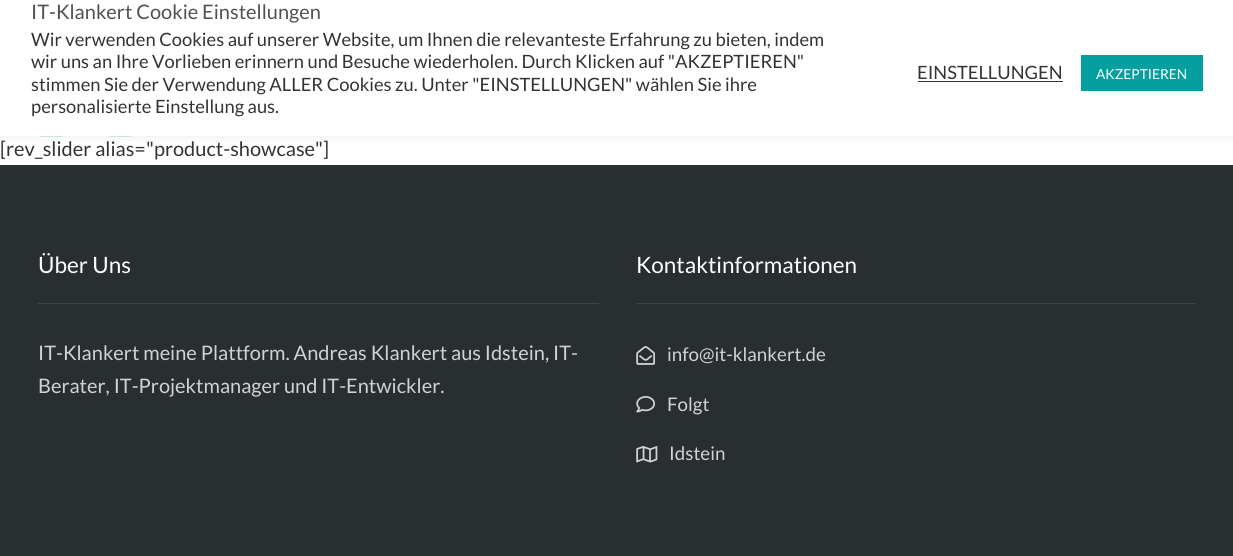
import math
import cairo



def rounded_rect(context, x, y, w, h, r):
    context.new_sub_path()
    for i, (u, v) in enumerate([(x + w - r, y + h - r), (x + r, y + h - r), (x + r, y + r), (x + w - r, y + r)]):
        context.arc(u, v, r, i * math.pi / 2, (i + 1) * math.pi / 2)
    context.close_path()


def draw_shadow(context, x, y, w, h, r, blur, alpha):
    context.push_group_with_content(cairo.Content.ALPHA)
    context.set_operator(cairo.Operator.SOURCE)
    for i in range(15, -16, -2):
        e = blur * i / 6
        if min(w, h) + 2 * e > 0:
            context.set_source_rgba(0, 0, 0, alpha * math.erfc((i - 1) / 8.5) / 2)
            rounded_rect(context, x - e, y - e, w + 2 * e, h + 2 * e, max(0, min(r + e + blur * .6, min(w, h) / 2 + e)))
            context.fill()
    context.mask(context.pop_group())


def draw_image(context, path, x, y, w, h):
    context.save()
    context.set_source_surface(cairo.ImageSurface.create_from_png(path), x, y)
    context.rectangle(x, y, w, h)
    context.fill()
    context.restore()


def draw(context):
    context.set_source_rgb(1, 1, 1)
    context.paint()
    draw_image(context, "images/1.png", 40, 136, 92, 1)
    context.set_source_rgb(172 / 255, 171 / 255, 171 / 255)
    draw_shadow(context, 0, -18, 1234, 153, 0, 6, 0.3)
    context.set_source_rgb(1, 1, 1)
    context.rectangle(0, 0, 1233, 136)
    context.fill()
    context.set_source_rgb(51 / 255, 51 / 255, 51 / 255)
    context.rectangle(918, 81, 145, 1)
    context.fill()
    context.set_source_rgb(5 / 255, 159 / 255, 159 / 255)
    context.rectangle(1081, 55, 122, 36)
    context.fill()
    context.set_source_rgb(41 / 255, 46 / 255, 49 / 255)
    context.rectangle(0, 165, 1233, 391)
    context.fill()
    context.set_source_rgb(62 / 255, 67 / 255, 70 / 255)
    context.rectangle(38, 303, 561, 1)
    context.fill()
    context.rectangle(636, 303, 560, 1)
    context.fill()
    draw_image(context, "images/2.png", 636, 346, 19, 19)
    draw_image(context, "images/3.png", 636, 396, 19, 17)
    draw_image(context, "images/4.png", 636, 446, 22, 17)
    context.select_font_face("Lato")
    context.set_font_size(20)
    context.set_source_rgb(81 / 255, 81 / 255, 81 / 255)
    context.move_to(31, 19)
    context.show_text("IT-Klankert Cookie Einstellungen")
    context.set_font_size(18.35)
    context.set_source_rgb(51 / 255, 51 / 255, 51 / 255)
    context.move_to(31, 46)
    context.show_text("Wir verwenden Cookies auf unserer Website, um Ihnen die relevanteste Erfahrung zu bieten, indem")
    context.move_to(31, 68)
    context.show_text("wir uns an Ihre Vorlieben erinnern und Besuche wiederholen. Durch Klicken auf \"AKZEPTIEREN\"")
    context.move_to(31, 91)
    context.show_text("stimmen Sie der Verwendung ALLER Cookies zu. Unter \"EINSTELLUNGEN\" wählen Sie ihre")
    context.move_to(31, 113)
    context.show_text("personalisierte Einstellung aus.")
    context.move_to(917, 79)
    context.show_text("EINSTELLUNGEN")
    context.set_font_size(13.75)
    context.set_source_rgb(1, 1, 1)
    context.move_to(1096, 79)
    context.show_text("AKZEPTIEREN")
    context.set_font_size(20)
    context.set_source_rgb(51 / 255, 51 / 255, 51 / 255)
    context.move_to(0, 156)
    context.show_text("[rev_slider alias=\"product-showcase\"]")
    context.set_font_size(22.5)
    context.set_source_rgb(1, 1, 1)
    context.move_to(38, 273)
    context.show_text("Über Uns")
    context.set_font_size(20)
    context.set_source_rgb(210 / 255, 210 / 255, 210 / 255)
    context.move_to(38, 360)
    context.show_text("IT-Klankert meine Plattform. Andreas Klankert aus Idstein, IT-")
    context.move_to(38, 393)
    context.show_text("Berater, IT-Projektmanager und IT-Entwickler.")
    context.set_font_size(22.5)
    context.set_source_rgb(1, 1, 1)
    context.move_to(636, 273)
    context.show_text("Kontaktinformationen")
    context.set_font_size(18.75)
    context.set_source_rgb(210 / 255, 210 / 255, 210 / 255)
    context.move_to(667, 361)
    context.show_text("info@it-klankert.de")
    context.move_to(667, 411)
    context.show_text("Folgt")
    context.move_to(669, 460)
    context.show_text("Idstein")


surface = cairo.ImageSurface(cairo.Format.RGB24, 1233, 556)
context = cairo.Context(surface)
options = cairo.FontOptions()
options.set_hint_metrics(cairo.HintMetrics.OFF)
options.set_hint_style(cairo.HintStyle.NONE)
context.set_font_options(options)
context.set_miter_limit(4)
draw(context)
surface.write_to_png("out.png")
